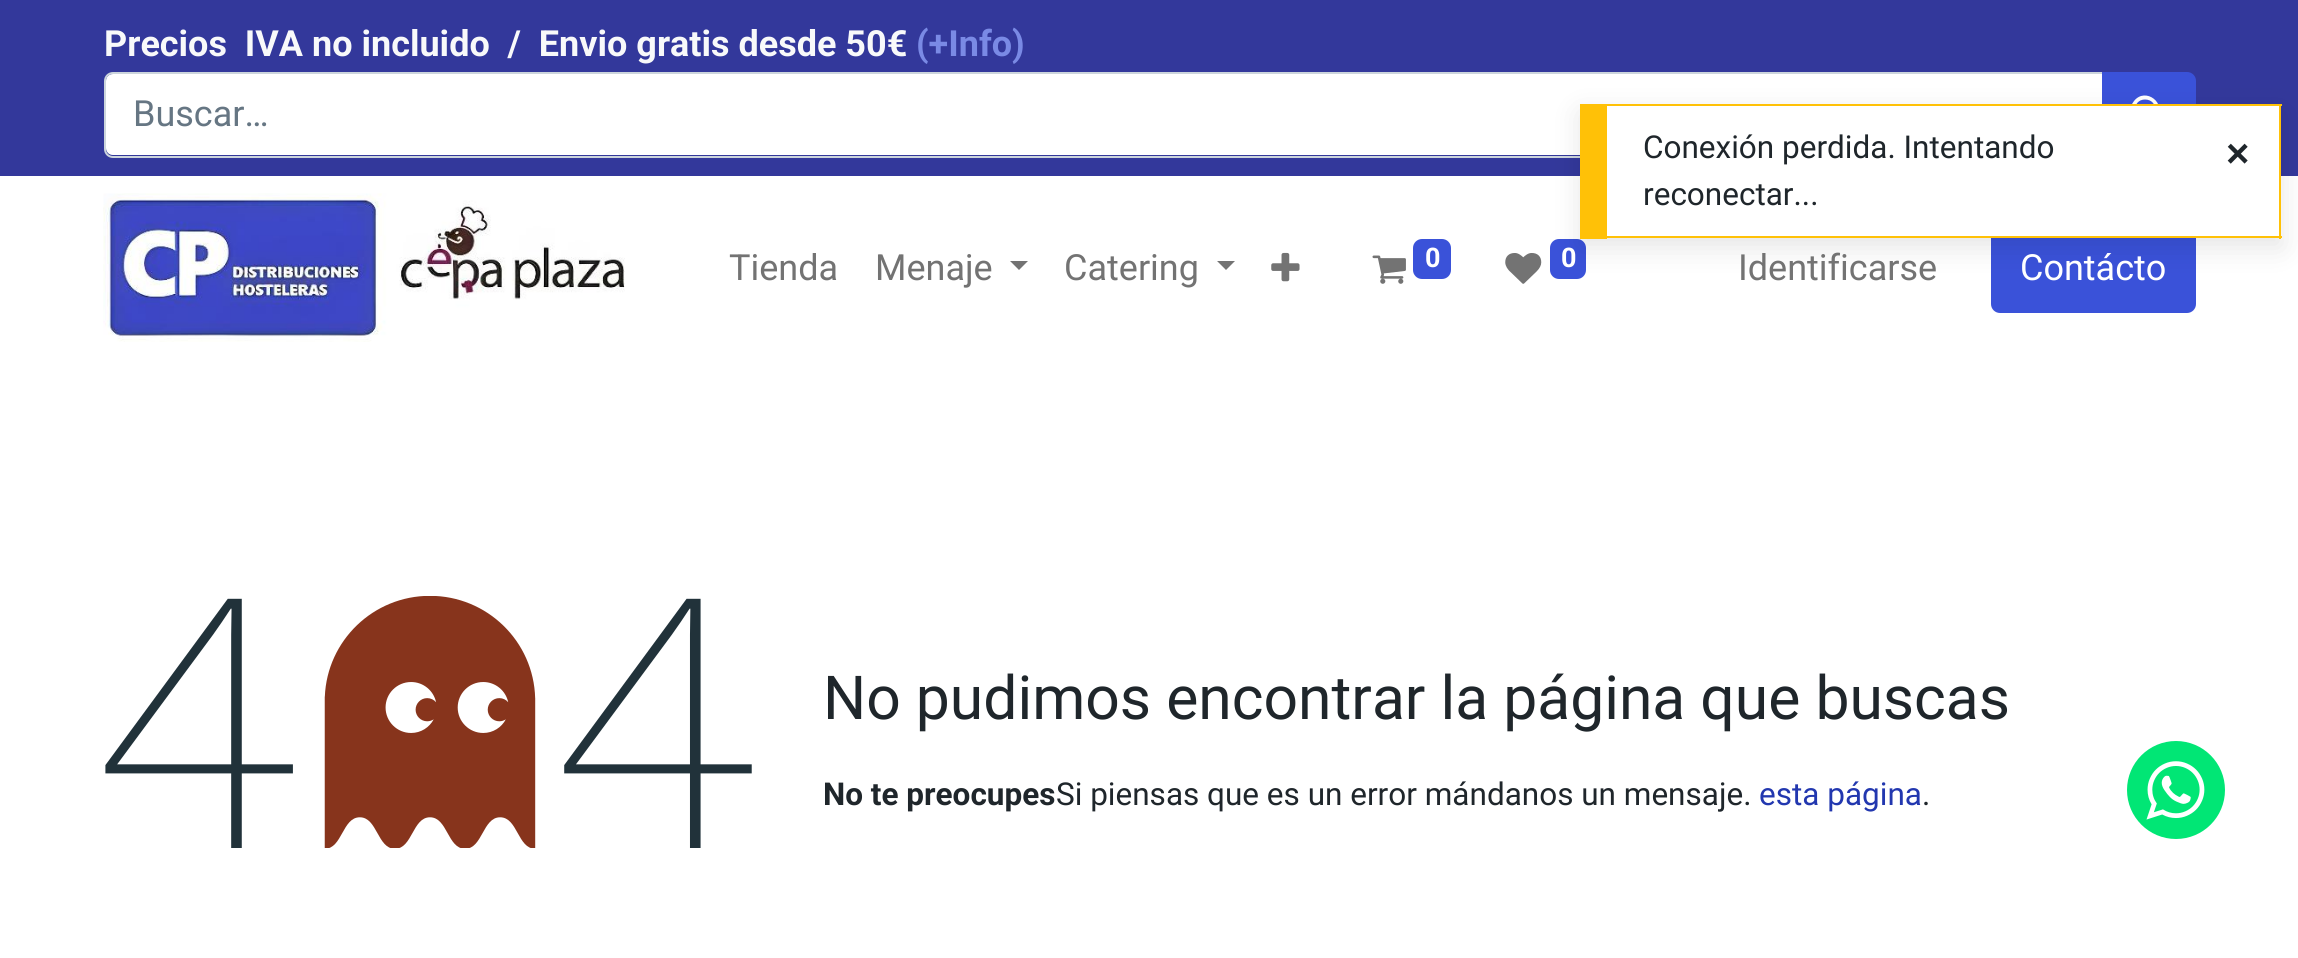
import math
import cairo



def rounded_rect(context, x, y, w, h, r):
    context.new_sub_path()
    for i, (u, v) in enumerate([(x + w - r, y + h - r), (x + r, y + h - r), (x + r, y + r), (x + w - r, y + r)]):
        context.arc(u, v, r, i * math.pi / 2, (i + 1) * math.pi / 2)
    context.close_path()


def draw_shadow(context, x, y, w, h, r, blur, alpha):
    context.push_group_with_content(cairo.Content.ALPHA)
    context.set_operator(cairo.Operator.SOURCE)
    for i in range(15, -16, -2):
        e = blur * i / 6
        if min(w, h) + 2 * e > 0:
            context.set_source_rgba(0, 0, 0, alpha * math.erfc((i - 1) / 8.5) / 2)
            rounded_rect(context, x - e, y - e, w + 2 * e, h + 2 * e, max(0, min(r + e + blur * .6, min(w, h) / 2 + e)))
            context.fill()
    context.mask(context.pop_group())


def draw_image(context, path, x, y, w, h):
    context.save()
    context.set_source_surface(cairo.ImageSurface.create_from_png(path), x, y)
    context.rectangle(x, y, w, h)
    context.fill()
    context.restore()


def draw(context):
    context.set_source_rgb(1, 1, 1)
    context.paint()
    context.set_source_rgb(51 / 255, 56 / 255, 155 / 255)
    context.rectangle(0, 0, 2298, 176)
    context.fill()
    context.set_source_rgb(1, 1, 1)
    context.new_path()
    context.move_to(113, 74)
    context.line_to(2102, 74)
    context.line_to(2102, 155)
    context.line_to(113, 155)
    context.curve_to(109, 155, 106, 152, 106, 148)
    context.line_to(106, 81)
    context.curve_to(106, 77, 109, 74, 113, 74)
    context.close_path()
    context.fill()
    context.new_path()
    context.move_to(113, 73)
    context.line_to(2103, 73)
    context.line_to(2103, 157)
    context.line_to(113, 157)
    context.curve_to(108.5, 157, 105, 153.5, 105, 149)
    context.line_to(105, 81)
    context.curve_to(105, 76.5, 108.5, 73, 113, 73)
    context.close_path()
    context.set_source_rgb(204 / 255, 213 / 255, 220 / 255)
    context.stroke()
    context.set_source_rgb(58 / 255, 82 / 255, 217 / 255)
    context.new_path()
    context.move_to(2103, 73)
    context.line_to(2187, 73)
    context.curve_to(2191.5, 73, 2195, 76.5, 2195, 81)
    context.line_to(2195, 149)
    context.curve_to(2195, 153.5, 2191.5, 157, 2187, 157)
    context.line_to(2103, 157)
    context.close_path()
    context.fill_preserve()
    context.stroke()
    context.set_source_rgb(1, 1, 1)
    context.new_path()
    context.move_to(2134, 101)
    context.curve_to(2145.5, 86.5, 2167.5, 103.5, 2156.5, 118.5)
    context.line_to(2167, 129)
    context.line_to(2164, 131.5)
    context.line_to(2154, 121.5)
    context.curve_to(2140.5, 132, 2123.5, 114, 2134, 101)
    context.close_path()
    context.move_to(2145, 99.5)
    context.curve_to(2131.5, 99.5, 2131.5, 120.5, 2145, 120.5)
    context.curve_to(2159, 120.5, 2159, 99.5, 2145, 99.5)
    context.close_path()
    context.fill()
    draw_image(context, "images/1.png", 103, 193, 522, 149)
    context.set_source_rgb(115 / 255, 115 / 255, 115 / 255)
    context.new_path()
    context.move_to(1010, 261)
    context.line_to(1028, 261)
    context.line_to(1019, 270)
    context.close_path()
    context.fill()
    context.new_path()
    context.move_to(1217, 261)
    context.line_to(1235, 261)
    context.line_to(1226, 270)
    context.close_path()
    context.fill()
    draw_image(context, "images/2.png", 1271, 252, 29, 30)
    draw_image(context, "images/3.png", 1372, 255, 34, 29)
    context.set_source_rgb(58 / 255, 82 / 255, 217 / 255)
    rounded_rect(context, 1413, 239, 38, 40, 9)
    context.fill()
    draw_image(context, "images/4.png", 1505, 253, 37, 31)
    rounded_rect(context, 1550, 239, 36, 40, 9)
    context.fill()
    rounded_rect(context, 1992, 228, 203, 84, 8)
    context.fill_preserve()
    context.stroke()
    draw_image(context, "images/5.png", 105, 596, 647, 252)
    context.set_source_rgb(0, 0, 0)
    draw_shadow(context, 1580, 113, 702, 135, 0, 13.5, 0.1)
    context.set_source_rgb(1, 1, 1)
    context.rectangle(1607, 106, 672, 130)
    context.fill()
    context.set_source_rgb(1, 193 / 255, 7 / 255)
    context.rectangle(1607, 104, 675, 2)
    context.fill()
    context.rectangle(2279, 104, 2, 135)
    context.fill()
    context.rectangle(1607, 236, 675, 2)
    context.fill()
    context.rectangle(1580, 104, 27, 135)
    context.fill()
    context.set_source_rgb(1 / 255, 230 / 255, 117 / 255)
    context.arc(2176, 790, 52.5, 0, 2 * math.pi)
    context.fill_preserve()
    context.set_source_rgb(1, 1, 1)
    context.set_line_width(7)
    context.stroke()
    draw_image(context, "images/6.png", 2146, 761, 59, 59)
    context.select_font_face("Roboto", cairo.FontSlant.NORMAL, cairo.FontWeight.BOLD)
    context.set_font_size(36)
    context.set_source_rgb(248 / 255, 249 / 255, 250 / 255)
    context.move_to(104, 56)
    context.show_text("Precios  IVA no incluido  /  Envio gratis desde 50€")
    context.set_source_rgb(122 / 255, 138 / 255, 229 / 255)
    context.move_to(916, 56)
    context.show_text("(+Info)")
    context.select_font_face("Roboto")
    context.set_source_rgb(102 / 255, 118 / 255, 131 / 255)
    context.move_to(133, 126)
    context.show_text("Buscar…")
    context.set_source_rgb(115 / 255, 115 / 255, 115 / 255)
    context.move_to(729, 280)
    context.show_text("Tienda")
    context.move_to(875, 280)
    context.show_text("Menaje")
    context.move_to(1064, 280)
    context.show_text("Catering")
    context.select_font_face("Roboto", cairo.FontSlant.NORMAL, cairo.FontWeight.BOLD)
    context.set_font_size(27)
    context.set_source_rgb(1, 1, 1)
    context.move_to(1425, 267)
    context.show_text("0")
    context.move_to(1561, 267)
    context.show_text("0")
    context.select_font_face("Roboto")
    context.set_font_size(36)
    context.set_source_rgb(115 / 255, 115 / 255, 115 / 255)
    context.move_to(1738, 280)
    context.show_text("Identificarse")
    context.set_source_rgb(1, 1, 1)
    context.move_to(2020, 280)
    context.show_text("Contácto")
    context.set_font_size(60.6)
    context.set_source_rgb(31 / 255, 38 / 255, 43 / 255)
    context.move_to(823, 719)
    context.show_text("No pudimos encontrar la página que buscas")
    context.select_font_face("Roboto", cairo.FontSlant.NORMAL, cairo.FontWeight.BOLD)
    context.set_font_size(31.5)
    context.move_to(823, 805)
    context.show_text("No te preocupes")
    context.select_font_face("Roboto")
    context.move_to(1056, 805)
    context.show_text("Si piensas que es un error mándanos un mensaje.")
    context.set_source_rgb(34 / 255, 55 / 255, 175 / 255)
    context.move_to(1759, 805)
    context.show_text("esta página")
    context.set_source_rgb(31 / 255, 38 / 255, 43 / 255)
    context.move_to(1922, 805)
    context.show_text(".")
    context.move_to(1643, 158)
    context.show_text("Conexión perdida. Intentando")
    context.move_to(1643, 205)
    context.show_text("reconectar...")
    context.select_font_face("Liberation Sans", cairo.FontSlant.NORMAL, cairo.FontWeight.BOLD)
    context.set_font_size(40)
    context.move_to(2226, 167)
    context.show_text("×")


surface = cairo.ImageSurface(cairo.Format.RGB24, 2298, 958)
context = cairo.Context(surface)
options = cairo.FontOptions()
options.set_hint_metrics(cairo.HintMetrics.OFF)
options.set_hint_style(cairo.HintStyle.NONE)
context.set_font_options(options)
context.set_miter_limit(4)
draw(context)
surface.write_to_png("out.png")
